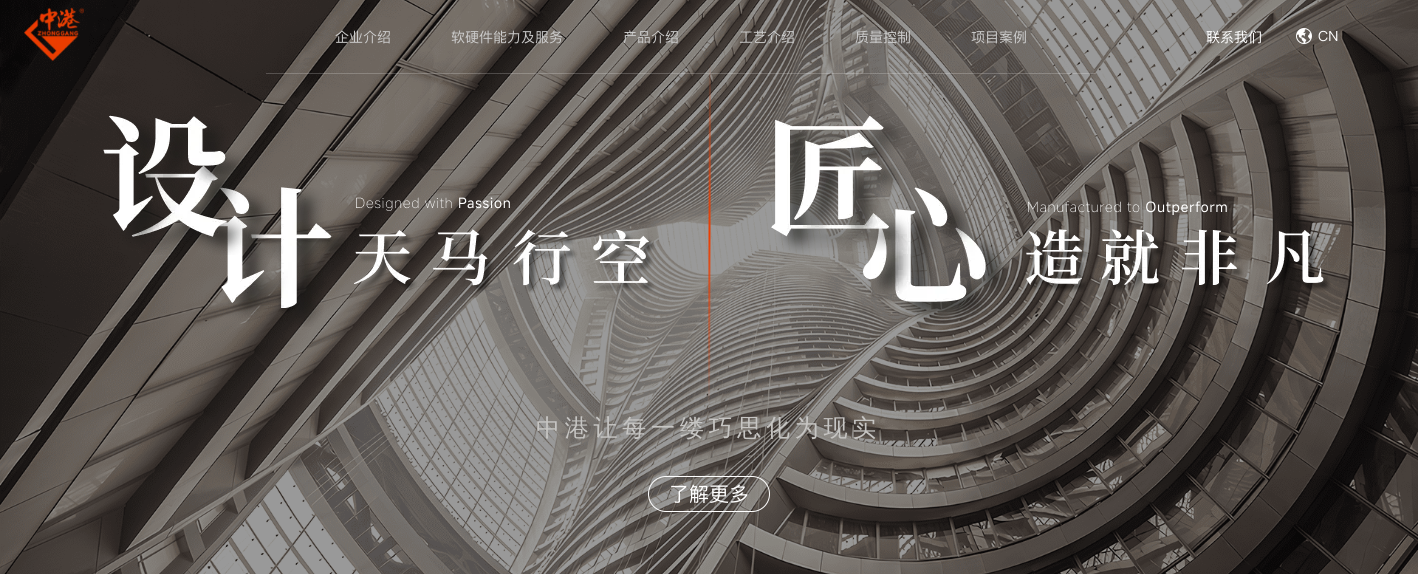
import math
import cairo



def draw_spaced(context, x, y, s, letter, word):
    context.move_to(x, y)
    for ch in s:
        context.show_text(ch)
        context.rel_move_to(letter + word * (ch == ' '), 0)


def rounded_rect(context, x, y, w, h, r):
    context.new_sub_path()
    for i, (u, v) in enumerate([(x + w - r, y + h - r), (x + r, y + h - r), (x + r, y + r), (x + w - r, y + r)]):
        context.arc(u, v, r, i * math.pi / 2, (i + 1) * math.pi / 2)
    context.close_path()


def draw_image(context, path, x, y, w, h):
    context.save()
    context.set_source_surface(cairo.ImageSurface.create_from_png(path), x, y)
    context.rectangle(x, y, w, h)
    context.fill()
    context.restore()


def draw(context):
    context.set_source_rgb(1, 1, 1)
    context.paint()
    draw_image(context, "images/3.png", 0, 0, 1418, 574)
    draw_image(context, "images/1.png", 24, 7, 60, 54)
    context.new_path()
    context.move_to(710, 63)
    context.line_to(709, 404)
    gradient = cairo.LinearGradient(711, 63, 710, 404)
    gradient.add_color_stop_rgba(0, 235 / 255, 61 / 255, 0, 0)
    gradient.add_color_stop_rgba(0.5, 235 / 255, 61 / 255, 0, 1)
    gradient.add_color_stop_rgba(1, 235 / 255, 61 / 255, 0, 0)
    context.set_source(gradient)
    context.stroke()
    context.set_source_rgba(1, 1, 1, 0.2)
    context.rectangle(266, 73, 830, 1)
    context.fill()
    draw_image(context, "images/2.png", 1296, 28, 16, 16)
    draw_image(context, "images/5.png", 216, 187, 130, 140)
    draw_image(context, "images/4.png", 103, 115, 144, 140)
    draw_image(context, "images/6.png", 356, 197, 154, 14)
    draw_image(context, "images/7.png", 354, 230, 63, 61)
    draw_image(context, "images/8.png", 433, 229, 61, 64)
    draw_image(context, "images/9.png", 513, 229, 64, 64)
    draw_image(context, "images/10.png", 593, 229, 63, 62)
    draw_image(context, "images/12.png", 863, 187, 147, 135)
    draw_image(context, "images/11.png", 771, 115, 140, 139)
    draw_image(context, "images/13.png", 1028, 201, 199, 14)
    draw_image(context, "images/14.png", 1026, 229, 62, 63)
    draw_image(context, "images/15.png", 1101, 229, 64, 63)
    draw_image(context, "images/16.png", 1181, 229, 63, 63)
    draw_image(context, "images/17.png", 1266, 230, 65, 61)
    rounded_rect(context, 648.5, 476.5, 121, 35, 17.5)
    context.set_source_rgb(1, 1, 1)
    context.set_line_width(1)
    context.stroke()
    context.select_font_face("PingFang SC")
    context.set_font_size(14)
    context.set_source_rgb(204 / 255, 204 / 255, 204 / 255)
    context.move_to(335, 42)
    context.show_text("企业介绍")
    context.move_to(451, 42)
    context.show_text("软硬件能力及服务")
    context.move_to(623, 42)
    context.show_text("产品介绍")
    context.move_to(739, 42)
    context.show_text("工艺介绍")
    context.move_to(855, 42)
    context.show_text("质量控制")
    context.move_to(971, 42)
    context.show_text("项目案例")
    context.set_source_rgb(1, 1, 1)
    context.move_to(1206, 42)
    context.show_text("联系我们")
    context.move_to(1318, 41)
    context.show_text("CN")
    context.select_font_face("WenQuanYi Zen Hei Medium")
    context.set_font_size(24)
    context.set_source_rgb(198 / 255, 197 / 255, 195 / 255)
    draw_spaced(context, 536, 436, "中港让每一缕巧思化为现实", 4.75, 0)
    context.select_font_face("PingFang SC")
    context.set_font_size(20)
    context.set_source_rgb(1, 1, 1)
    context.move_to(669, 501)
    context.show_text("了解更多")


surface = cairo.ImageSurface(cairo.Format.RGB24, 1418, 574)
context = cairo.Context(surface)
options = cairo.FontOptions()
options.set_hint_metrics(cairo.HintMetrics.OFF)
options.set_hint_style(cairo.HintStyle.NONE)
context.set_font_options(options)
context.set_miter_limit(4)
draw(context)
surface.write_to_png("out.png")
